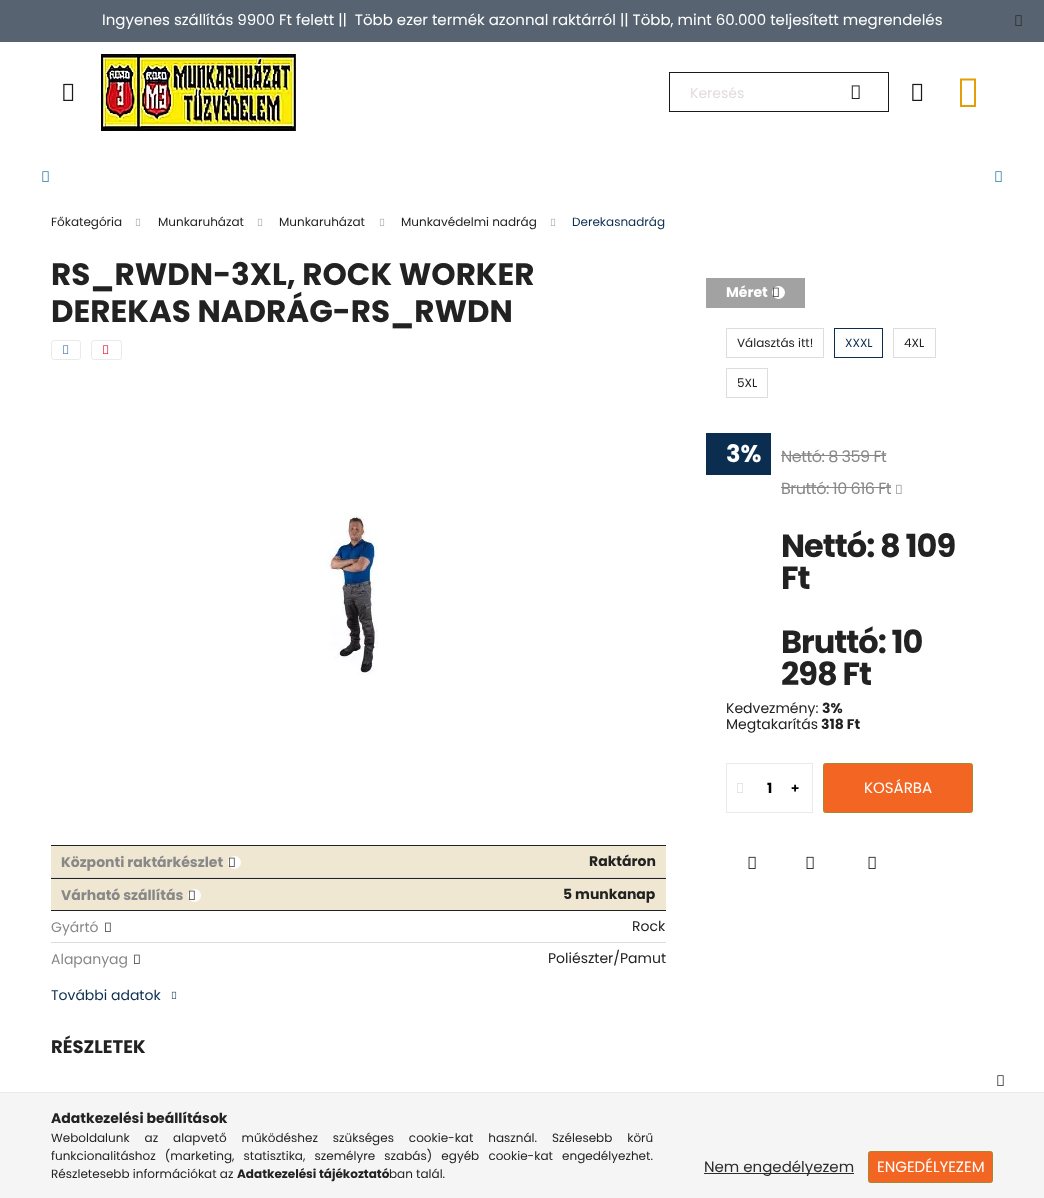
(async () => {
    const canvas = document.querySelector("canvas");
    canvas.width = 1044;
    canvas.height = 1198;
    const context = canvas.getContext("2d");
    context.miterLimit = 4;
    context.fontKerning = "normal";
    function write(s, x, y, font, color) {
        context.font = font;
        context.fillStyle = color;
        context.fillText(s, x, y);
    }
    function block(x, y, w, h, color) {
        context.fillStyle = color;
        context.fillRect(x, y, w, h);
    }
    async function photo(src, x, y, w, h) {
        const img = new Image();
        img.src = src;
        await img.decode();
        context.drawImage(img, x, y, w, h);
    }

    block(0, 0, 1044, 1198, "rgb(255, 255, 255)");
    block(0, 0, 1044, 42, "rgb(87, 99, 113)");
    write("Ingyenes szállítás 9900 Ft felett ||  Több ezer termék azonnal raktárról || Több, mint 60.000 teljesített megrendelés", 102, 25, "15px Poppins", "rgb(255, 255, 255)");
    await photo("media/1.png", 1015, 15, 7, 11);
    await photo("media/2.png", 63, 83, 11, 18);
    await photo("media/3.png", 101, 54, 195, 77);
    context.strokeStyle = "rgb(26, 26, 26)";
    context.strokeRect(669.5, 72.5, 219, 39);
    write("Keresés", 690, 98, "14px Poppins", "rgb(227, 220, 220)");
    await photo("media/4.png", 851, 85, 9, 14);
    await photo("media/2.png", 912, 83, 11, 18);
    context.fillStyle = "rgb(226, 159, 7)";
    context.beginPath();
    context.moveTo(960, 107);
    context.lineTo(960, 78.5);
    context.lineTo(976, 78.5);
    context.lineTo(976, 107);
    context.closePath();
    context.moveTo(962, 105);
    context.lineTo(974, 105);
    context.lineTo(974, 80.5);
    context.lineTo(962, 80.5);
    context.closePath();
    context.fill();
    await photo("media/5.png", 42, 171, 7, 11);
    await photo("media/5.png", 995, 171, 7, 11);
    write("Főkategória", 51, 226, "12px Poppins", "rgb(34, 34, 34)");
    await photo("media/6.png", 135, 218, 6, 8);
    write("Munkaruházat", 158, 226, "12px Poppins", "rgb(34, 34, 34)");
    await photo("media/6.png", 257, 218, 6, 8);
    write("Munkaruházat", 279, 226, "12px Poppins", "rgb(34, 34, 34)");
    await photo("media/6.png", 379, 218, 6, 8);
    write("Munkavédelmi nadrág", 401, 226, "12px Poppins", "rgb(34, 34, 34)");
    await photo("media/6.png", 550, 218, 6, 8);
    write("Derekasnadrág", 572, 226, "12px Poppins", "rgb(11, 45, 79)");
    write("RS_RWDN-3XL, ROCK WORKER", 51, 285, "bold 31px Poppins", "rgb(34, 34, 34)");
    write("DEREKAS NADRÁG-RS_RWDN", 51, 322, "bold 31px Poppins", "rgb(34, 34, 34)");
    context.beginPath();
    context.roundRect(51.5, 340.5, 29, 19, 2.5);
    context.strokeStyle = "rgb(234, 234, 234)";
    context.stroke();
    await photo("media/7.png", 63, 345, 6, 9);
    context.beginPath();
    context.roundRect(91.5, 340.5, 30, 19, 2.5);
    context.stroke();
    await photo("media/8.png", 103, 345, 6, 9);
    await photo("media/9.png", 326, 515, 52, 160);
    block(51, 846, 615, 31, "rgb(239, 231, 210)");
    block(51, 845, 615, 1, "rgb(34, 34, 34)");
    block(51, 877, 615, 1, "rgb(221, 221, 221)");
    write("Központi raktárkészlet", 61, 867, "bold 14px Poppins", "rgb(136, 136, 136)");
    context.fillStyle = "rgb(255, 255, 255)";
    context.beginPath();
    context.arc(234.5, 862.5, 6.5, 0, Math.PI * 2);
    context.fill();
    await photo("media/10.png", 229, 857, 6, 10);
    write("Raktáron", 589, 866, "bold 14px Poppins", "rgb(34, 34, 34)");
    block(51, 879, 615, 31, "rgb(239, 231, 210)");
    block(51, 878, 615, 1, "rgb(34, 34, 34)");
    block(51, 910, 615, 1, "rgb(34, 34, 34)");
    write("Várható szállítás", 61, 900, "bold 14px Poppins", "rgb(136, 136, 136)");
    context.fillStyle = "rgb(255, 255, 255)";
    context.beginPath();
    context.arc(194.5, 895.5, 6.5, 0, Math.PI * 2);
    context.fill();
    await photo("media/10.png", 189, 890, 6, 10);
    write("5 munkanap", 563, 899, "bold 14px Poppins", "rgb(34, 34, 34)");
    block(51, 942, 615, 1, "rgb(221, 221, 221)");
    write("Gyártó", 51, 932, "14px Poppins", "rgb(136, 136, 136)");
    await photo("media/11.png", 105, 922, 6, 10);
    write("Rock", 632, 931, "14px Poppins", "rgb(34, 34, 34)");
    write("Alapanyag", 51, 964, "14px Poppins", "rgb(136, 136, 136)");
    await photo("media/11.png", 134, 954, 6, 10);
    write("Poliészter/Pamut", 548, 963, "14px Poppins", "rgb(34, 34, 34)");
    write("További adatok", 51, 1000, "14px Poppins", "rgb(11, 45, 79)");
    await photo("media/12.png", 171, 991, 6, 8);
    block(706, 278, 99, 30, "rgb(162, 162, 162)");
    write("Méret", 726, 297, "bold 14px Poppins", "rgb(255, 255, 255)");
    context.beginPath();
    context.arc(778.5, 292.5, 6.5, 0, Math.PI * 2);
    context.fill();
    await photo("media/13.png", 773, 287, 6, 10);
    context.strokeStyle = "rgb(221, 221, 221)";
    context.strokeRect(726.5, 328.5, 97, 29);
    write("Választás itt!", 737, 347, "12px Poppins", "rgb(34, 34, 34)");
    context.strokeStyle = "rgb(11, 45, 79)";
    context.strokeRect(834.5, 328.5, 48, 29);
    write("XXXL", 845, 347, "12px Poppins", "rgb(11, 45, 79)");
    context.strokeStyle = "rgb(221, 221, 221)";
    context.strokeRect(893.5, 328.5, 42, 29);
    write("4XL", 904, 347, "12px Poppins", "rgb(34, 34, 34)");
    context.strokeRect(726.5, 368.5, 41, 29);
    write("5XL", 737, 387, "12px Poppins", "rgb(34, 34, 34)");
    block(706, 433, 65, 42, "rgb(11, 45, 79)");
    write("3%", 726, 462, "bold 24px Poppins", "rgb(255, 255, 255)");
    context.letterSpacing = "-0.5px";
    write("Nettó: 8 359 Ft", 781, 462, "16px Poppins", "rgb(136, 136, 136)");
    block(781, 455, 105, 1, "rgb(136, 136, 136)");
    write("Bruttó: 10 616 Ft", 781, 494, "16px Poppins", "rgb(136, 136, 136)");
    block(781, 487, 110, 1, "rgb(136, 136, 136)");
    await photo("media/14.png", 896, 484, 6, 10);
    context.letterSpacing = "-1px";
    write("Nettó: 8 109", 781, 557, "bold 32px Poppins", "rgb(34, 34, 34)");
    write("Ft", 781, 589, "bold 32px Poppins", "rgb(34, 34, 34)");
    write("Bruttó: 10", 781, 653, "bold 32px Poppins", "rgb(34, 34, 34)");
    write("298 Ft", 781, 685, "bold 32px Poppins", "rgb(34, 34, 34)");
    context.letterSpacing = "0px";
    write("Kedvezmény:", 726, 713, "14px Poppins", "rgb(34, 34, 34)");
    write("3%", 822, 713, "bold 14px Poppins", "rgb(34, 34, 34)");
    write("Megtakarítás", 726, 729, "14px Poppins", "rgb(34, 34, 34)");
    write("318 Ft", 821, 729, "bold 14px Poppins", "rgb(34, 34, 34)");
    context.strokeStyle = "rgb(234, 234, 234)";
    context.strokeRect(726.5, 763.5, 86, 49);
    await photo("media/15.png", 737, 783, 6, 10);
    write("1", 767, 793, "bold 14px Poppins", "rgb(0, 0, 0)");
    write("+", 791, 793, "900 14px Noto Sans", "rgb(0, 0, 0)");
    context.fillStyle = "rgb(242, 101, 34)";
    context.beginPath();
    context.roundRect(823.5, 763.5, 149, 49, 2);
    context.fill();
    context.strokeStyle = "rgb(168, 135, 52)";
    context.stroke();
    write("KOSÁRBA", 864, 793, "15px Poppins", "rgb(255, 255, 255)");
    await photo("media/16.png", 748, 856, 8, 13);
    await photo("media/16.png", 806, 856, 8, 13);
    await photo("media/16.png", 868, 856, 8, 13);
    write("RÉSZLETEK", 51, 1053, "bold 18px Poppins", "rgb(34, 34, 34)");
    await photo("media/17.png", 997, 1075, 7, 11);
    block(0, 1093, 1044, 105, "rgb(245, 245, 245)");
    block(0, 1092, 1044, 1, "rgb(234, 234, 234)");
    write("Adatkezelési beállítások", 51, 1123, "bold 14px Poppins", "rgb(34, 34, 34)");
    context.wordSpacing = "11.75px";
    write("Weboldalunk az alapvető működéshez szükséges cookie-kat használ. Szélesebb körű", 51, 1142, "12px Poppins", "rgb(34, 34, 34)");
    context.wordSpacing = "6px";
    write("funkcionalitáshoz (marketing, statisztika, személyre szabás) egyéb cookie-kat engedélyezhet.", 51, 1160, "12px Poppins", "rgb(34, 34, 34)");
    context.wordSpacing = "0px";
    write("Részletesebb információkat az", 51, 1178, "12px Poppins", "rgb(34, 34, 34)");
    write("Adatkezelési tájékoztató", 237, 1178, "bold 12px Poppins", "rgb(34, 34, 34)");
    write("ban talál.", 389, 1178, "12px Poppins", "rgb(34, 34, 34)");
    block(704, 1173, 150, 1, "rgb(44, 44, 44)");
    write("Nem engedélyezem", 704, 1172, "15px Poppins", "rgb(44, 44, 44)");
    context.fillStyle = "rgb(242, 101, 34)";
    context.beginPath();
    context.roundRect(868.5, 1151.5, 124, 31, 2);
    context.fill();
    context.stroke();
    write("ENGEDÉLYEZEM", 877, 1172, "15px Poppins", "rgb(255, 255, 255)");
})();
